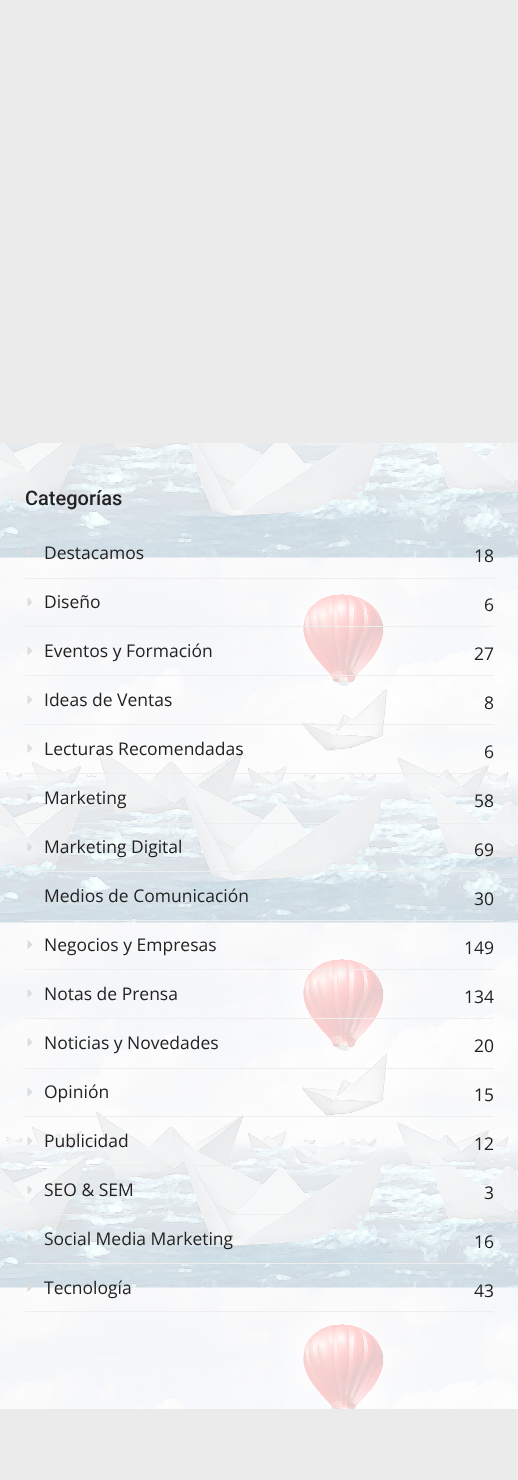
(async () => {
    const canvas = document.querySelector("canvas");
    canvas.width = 518;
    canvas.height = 1480;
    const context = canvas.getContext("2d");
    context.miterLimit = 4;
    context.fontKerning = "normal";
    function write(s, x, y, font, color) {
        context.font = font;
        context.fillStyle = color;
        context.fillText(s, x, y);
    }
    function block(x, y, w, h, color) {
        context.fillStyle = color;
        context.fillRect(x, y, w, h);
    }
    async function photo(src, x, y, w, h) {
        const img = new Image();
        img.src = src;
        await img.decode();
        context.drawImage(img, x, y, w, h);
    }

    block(0, 0, 518, 1480, "rgb(255, 255, 255)");
    await photo("media/1.png", 0, 443, 518, 966);
    block(0, 0, 518, 443, "rgb(235, 235, 235)");
    write("Categorías", 25, 505, "500 20px Roboto", "rgb(34, 34, 34)");
    await photo("media/2.png", 27, 548, 5, 8);
    block(25, 578, 469, 1, "rgb(238, 238, 238)");
    write("Destacamos", 44, 559, "17.5px Open Sans", "rgb(34, 34, 34)");
    write("18", 474, 562, "17.5px Open Sans", "rgb(34, 34, 34)");
    await photo("media/3.png", 27, 598, 6, 9);
    block(25, 626, 469, 1, "rgb(238, 238, 238)");
    write("Diseño", 44, 608, "17.5px Open Sans", "rgb(34, 34, 34)");
    write("6", 484, 611, "17.5px Open Sans", "rgb(34, 34, 34)");
    await photo("media/4.png", 27, 646, 5, 9);
    block(25, 675, 469, 1, "rgb(238, 238, 238)");
    write("Eventos y Formación", 44, 657, "17.5px Open Sans", "rgb(34, 34, 34)");
    write("27", 474, 660, "17.5px Open Sans", "rgb(34, 34, 34)");
    await photo("media/5.png", 27, 695, 6, 9);
    block(25, 724, 469, 1, "rgb(238, 238, 238)");
    write("Ideas de Ventas", 44, 706, "17.5px Open Sans", "rgb(34, 34, 34)");
    write("8", 484, 709, "17.5px Open Sans", "rgb(34, 34, 34)");
    await photo("media/6.png", 27, 744, 6, 9);
    block(25, 773, 469, 1, "rgb(238, 238, 238)");
    write("Lecturas Recomendadas", 44, 755, "17.5px Open Sans", "rgb(34, 34, 34)");
    write("6", 484, 758, "17.5px Open Sans", "rgb(34, 34, 34)");
    await photo("media/7.png", 27, 793, 6, 9);
    block(25, 823, 469, 1, "rgb(238, 238, 238)");
    write("Marketing", 44, 804, "17.5px Open Sans", "rgb(34, 34, 34)");
    write("58", 474, 807, "17.5px Open Sans", "rgb(34, 34, 34)");
    await photo("media/8.png", 27, 843, 5, 8);
    block(25, 871, 469, 1, "rgb(238, 238, 238)");
    write("Marketing Digital", 44, 853, "17.5px Open Sans", "rgb(34, 34, 34)");
    write("69", 474, 856, "17.5px Open Sans", "rgb(34, 34, 34)");
    await photo("media/9.png", 27, 892, 5, 8);
    block(25, 920, 469, 1, "rgb(238, 238, 238)");
    write("Medios de Comunicación", 44, 902, "17.5px Open Sans", "rgb(34, 34, 34)");
    write("30", 474, 905, "17.5px Open Sans", "rgb(34, 34, 34)");
    await photo("media/10.png", 27, 940, 6, 9);
    block(25, 969, 469, 1, "rgb(238, 238, 238)");
    write("Negocios y Empresas", 44, 951, "17.5px Open Sans", "rgb(34, 34, 34)");
    write("149", 464, 954, "17.5px Open Sans", "rgb(34, 34, 34)");
    await photo("media/11.png", 27, 989, 6, 9);
    block(25, 1018, 469, 1, "rgb(238, 238, 238)");
    write("Notas de Prensa", 44, 1000, "17.5px Open Sans", "rgb(34, 34, 34)");
    write("134", 464, 1003, "17.5px Open Sans", "rgb(34, 34, 34)");
    await photo("media/12.png", 27, 1038, 6, 9);
    block(25, 1068, 469, 1, "rgb(238, 238, 238)");
    write("Noticias y Novedades", 44, 1049, "17.5px Open Sans", "rgb(34, 34, 34)");
    write("20", 474, 1052, "17.5px Open Sans", "rgb(34, 34, 34)");
    await photo("media/13.png", 27, 1088, 6, 9);
    block(25, 1116, 469, 1, "rgb(238, 238, 238)");
    write("Opinión", 44, 1098, "17.5px Open Sans", "rgb(34, 34, 34)");
    write("15", 474, 1101, "17.5px Open Sans", "rgb(34, 34, 34)");
    await photo("media/14.png", 27, 1136, 6, 9);
    block(25, 1165, 469, 1, "rgb(238, 238, 238)");
    write("Publicidad", 44, 1147, "17.5px Open Sans", "rgb(34, 34, 34)");
    write("12", 474, 1150, "17.5px Open Sans", "rgb(34, 34, 34)");
    await photo("media/15.png", 27, 1185, 6, 9);
    block(25, 1214, 469, 1, "rgb(238, 238, 238)");
    write("SEO & SEM", 44, 1196, "17.5px Open Sans", "rgb(34, 34, 34)");
    write("3", 484, 1199, "17.5px Open Sans", "rgb(34, 34, 34)");
    await photo("media/16.png", 27, 1234, 6, 9);
    block(25, 1263, 469, 1, "rgb(238, 238, 238)");
    write("Social Media Marketing", 44, 1245, "17.5px Open Sans", "rgb(34, 34, 34)");
    write("16", 474, 1248, "17.5px Open Sans", "rgb(34, 34, 34)");
    await photo("media/17.png", 27, 1283, 5, 9);
    block(25, 1311, 469, 1, "rgb(238, 238, 238)");
    write("Tecnología", 44, 1294, "17.5px Open Sans", "rgb(34, 34, 34)");
    write("43", 474, 1297, "17.5px Open Sans", "rgb(34, 34, 34)");
    block(0, 1409, 518, 71, "rgb(235, 235, 235)");
})();
